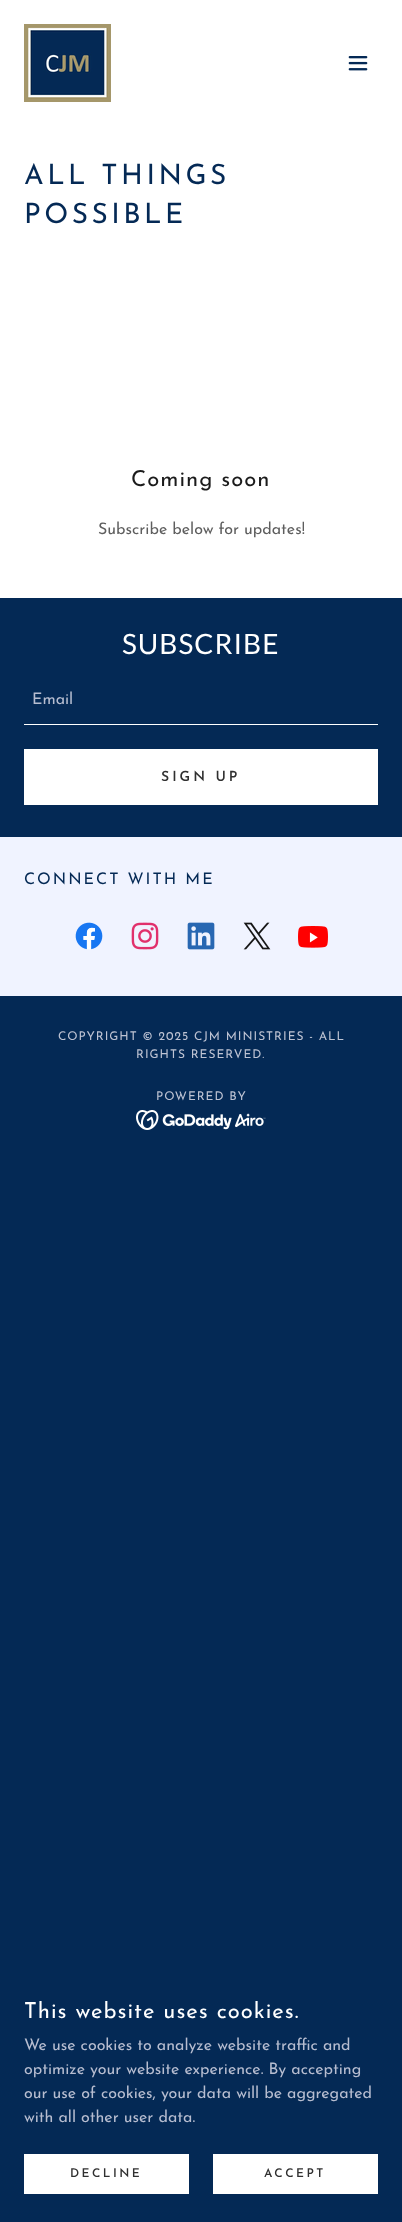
(async () => {
    const canvas = document.querySelector("canvas");
    canvas.width = 402;
    canvas.height = 2222;
    const context = canvas.getContext("2d");
    context.miterLimit = 4;
    context.fontKerning = "normal";
    function write(s, x, y, font, color) {
        context.font = font;
        context.fillStyle = color;
        context.fillText(s, x, y);
    }
    function block(x, y, w, h, color) {
        context.fillStyle = color;
        context.fillRect(x, y, w, h);
    }
    async function photo(src, x, y, w, h) {
        const img = new Image();
        img.src = src;
        await img.decode();
        context.drawImage(img, x, y, w, h);
    }

    block(0, 0, 402, 2222, "rgb(4, 41, 85)");
    block(0, 0, 402, 598, "rgb(255, 255, 255)");
    await photo("media/1.png", 24, 24, 87, 78);
    await photo("media/2.png", 348, 56, 20, 15);
    context.letterSpacing = "3.5px";
    write("ALL THINGS", 24, 184, "28px Josefin Sans", "rgb(4, 41, 85)");
    write("POSSIBLE", 24, 223, "28px Josefin Sans", "rgb(4, 41, 85)");
    context.letterSpacing = "1px";
    write("Coming soon", 131, 486, "22px Josefin Sans", "rgb(27, 27, 27)");
    context.letterSpacing = "0px";
    write("Subscribe below for updates!", 98, 534, "16px Josefin Sans", "rgb(94, 94, 94)");
    context.letterSpacing = "1px";
    write("SUBSCRIBE", 122, 654, "28px Lato", "rgb(255, 255, 255)");
    context.letterSpacing = "0px";
    write("Email", 32, 704, "16px Josefin Sans", "rgb(183, 189, 208)");
    block(24, 724, 354, 1, "rgb(255, 255, 255)");
    block(24, 749, 354, 56, "rgb(255, 255, 255)");
    context.letterSpacing = "3px";
    write("SIGN UP", 161, 781, "600 14px Josefin Sans", "rgb(48, 48, 48)");
    block(0, 837, 402, 159, "rgb(240, 243, 255)");
    context.letterSpacing = "2px";
    write("CONNECT WITH ME", 24, 884, "16px Josefin Sans", "rgb(4, 41, 85)");
    await photo("media/3.png", 75, 922, 28, 28);
    await photo("media/4.png", 131, 922, 28, 28);
    await photo("media/5.png", 187, 922, 28, 28);
    await photo("media/6.png", 243, 922, 28, 28);
    await photo("media/7.png", 298, 926, 30, 22);
    context.letterSpacing = "1px";
    write("COPYRIGHT © 2025 CJM MINISTRIES - ALL", 58, 1040, "12px Josefin Sans", "rgb(190, 195, 211)");
    write("RIGHTS RESERVED.", 136, 1058, "12px Josefin Sans", "rgb(190, 195, 211)");
    write("POWERED BY", 156, 1100, "12px Josefin Sans", "rgb(190, 195, 211)");
    await photo("media/8.png", 136, 1110, 130, 20);
    write("This website uses cookies.", 24, 2018, "22px Josefin Sans", "rgb(255, 255, 255)");
    context.letterSpacing = "0px";
    write("We use cookies to analyze website traffic and", 24, 2050, "16px Josefin Sans", "rgb(183, 189, 208)");
    write("optimize your website experience. By accepting", 24, 2074, "16px Josefin Sans", "rgb(183, 189, 208)");
    write("our use of cookies, your data will be aggregated", 24, 2098, "16px Josefin Sans", "rgb(183, 189, 208)");
    write("with all other user data.", 24, 2122, "16px Josefin Sans", "rgb(183, 189, 208)");
    block(24, 2154, 165, 40, "rgb(255, 255, 255)");
    context.letterSpacing = "2.5px";
    write("DECLINE", 70, 2177, "600 12px Josefin Sans", "rgb(48, 48, 48)");
    block(213, 2154, 165, 40, "rgb(255, 255, 255)");
    write("ACCEPT", 264, 2177, "600 12px Josefin Sans", "rgb(48, 48, 48)");
})();
